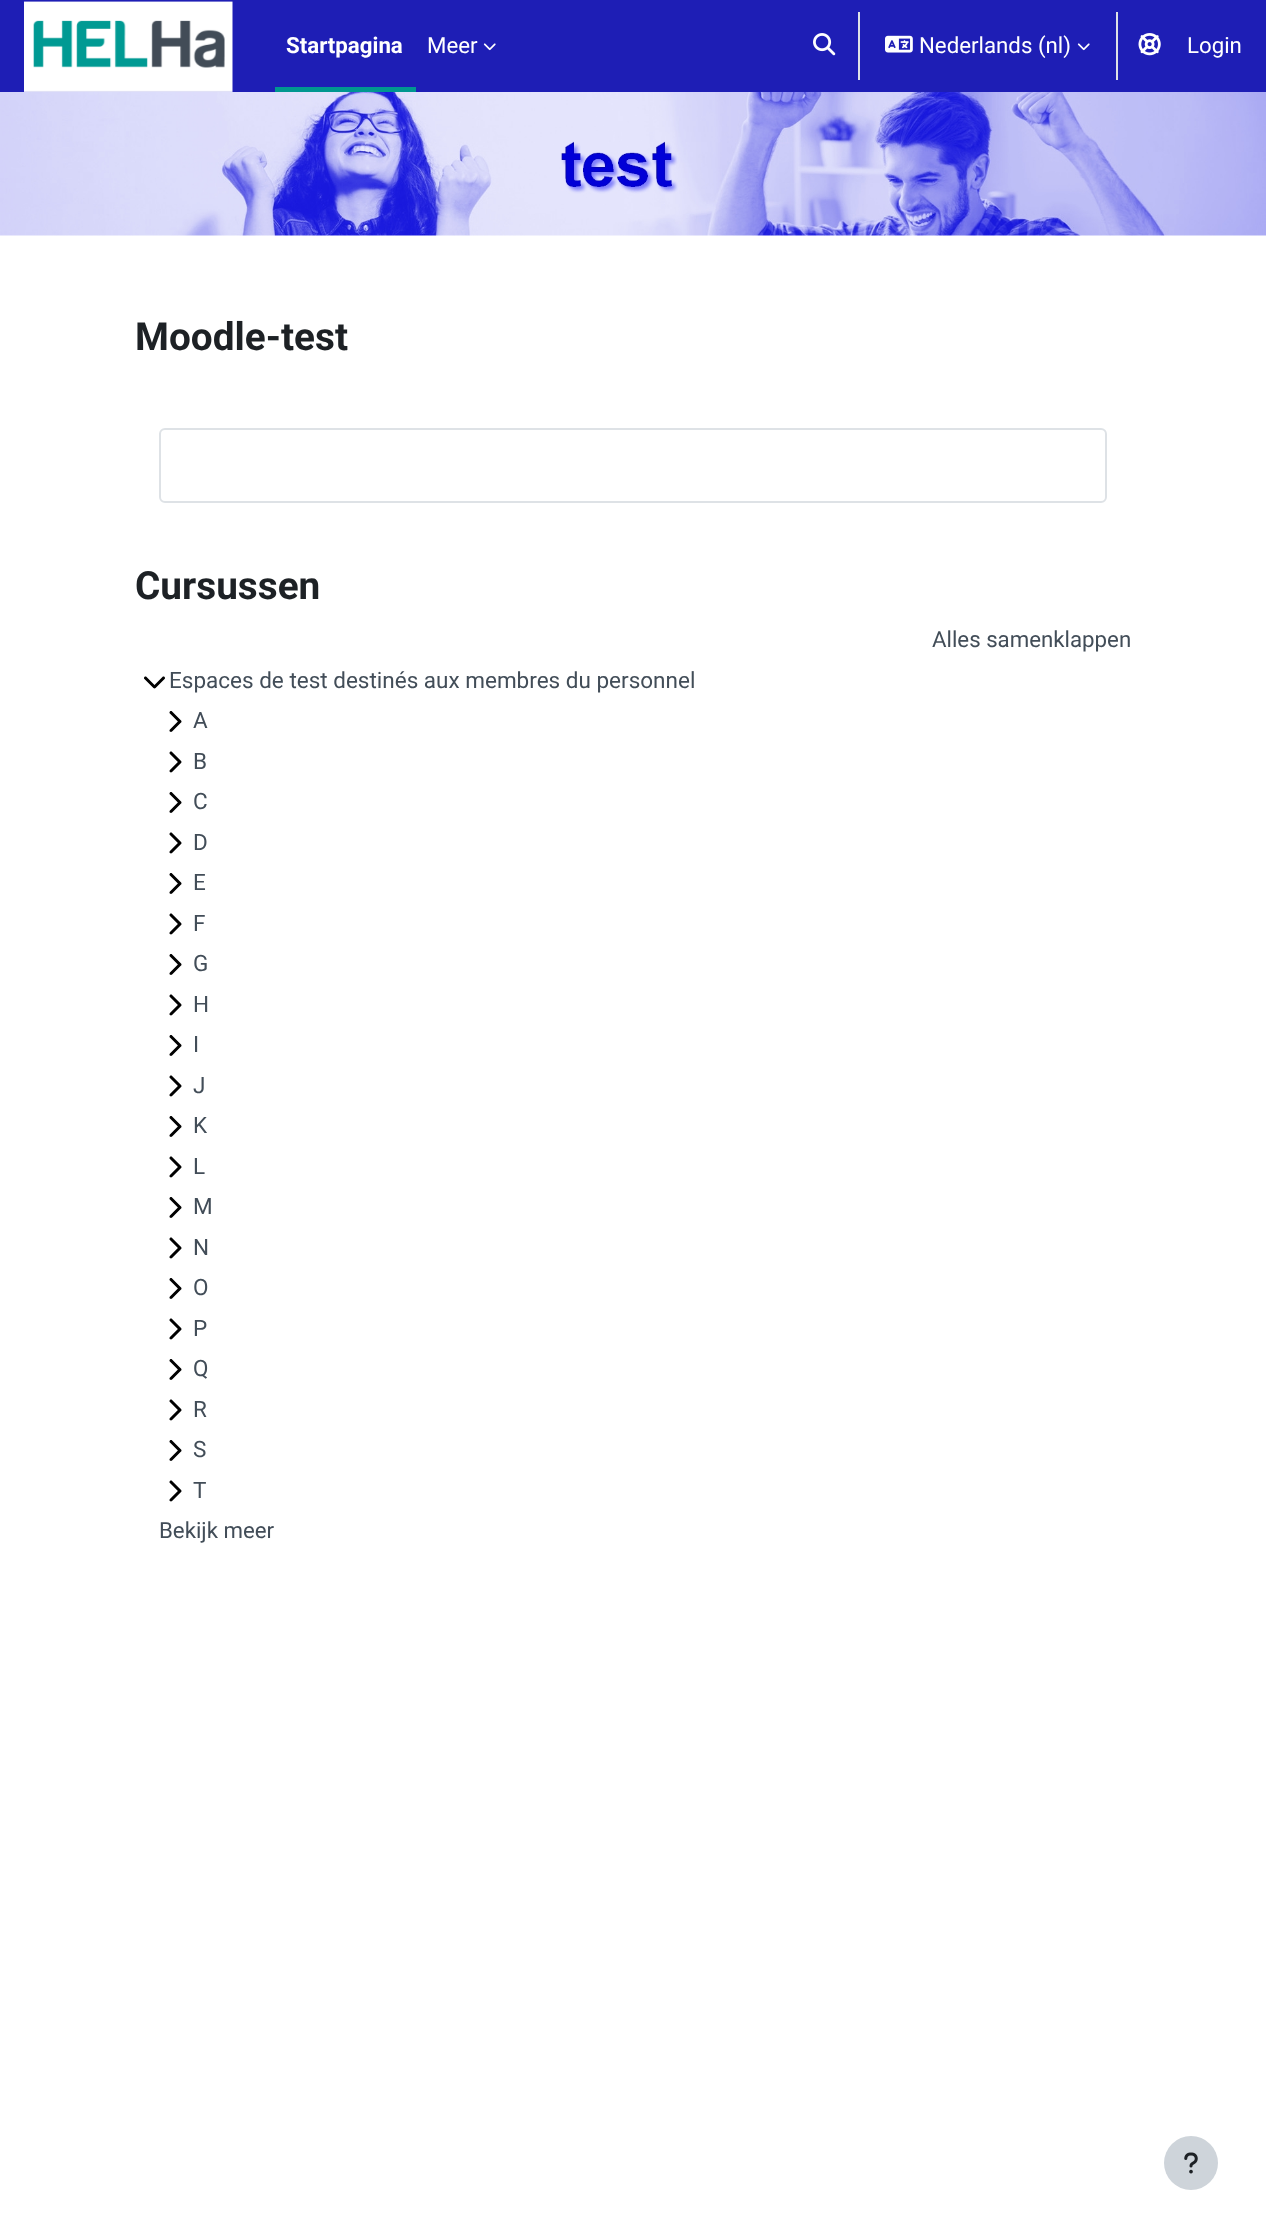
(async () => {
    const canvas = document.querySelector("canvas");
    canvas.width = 1266;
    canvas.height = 2238;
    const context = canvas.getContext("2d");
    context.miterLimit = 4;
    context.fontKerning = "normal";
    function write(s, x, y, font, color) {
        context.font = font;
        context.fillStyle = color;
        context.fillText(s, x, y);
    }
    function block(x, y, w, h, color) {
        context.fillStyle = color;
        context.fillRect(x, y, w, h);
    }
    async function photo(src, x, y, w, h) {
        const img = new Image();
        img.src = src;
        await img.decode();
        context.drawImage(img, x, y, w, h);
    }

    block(0, 0, 1266, 2238, "rgb(255, 255, 255)");
    block(0, 0, 1266, 92, "rgb(30, 30, 181)");
    await photo("media/1.png", 24, 1, 209, 91);
    block(275, 87, 141, 5, "rgb(0, 151, 144)");
    write("Startpagina", 286, 53, "bold 22.25px Roboto", "rgb(255, 255, 255)");
    write("Meer", 427, 53, "22.25px Roboto", "rgb(255, 255, 255)");
    await photo("media/2.png", 483, 43, 13, 8);
    await photo("media/3.png", 813, 33, 23, 23);
    block(858, 12, 2, 68, "rgb(222, 226, 230)");
    await photo("media/4.png", 885, 35, 28, 18);
    write("Nederlands (nl)", 919, 53, "22.25px Roboto", "rgb(255, 255, 255)");
    await photo("media/2.png", 1077, 43, 13, 8);
    block(1116, 12, 2, 68, "rgb(222, 226, 230)");
    await photo("media/5.png", 1138, 33, 23, 23);
    write("Login", 1187, 53, "22.25px Roboto", "rgb(255, 255, 255)");
    write("Moodle-test", 135, 350, "bold 38.75px Roboto", "rgb(29, 33, 37)");
    context.beginPath();
    context.roundRect(160, 429, 946, 73, 5);
    context.strokeStyle = "rgb(222, 226, 230)";
    context.lineWidth = 2;
    context.stroke();
    write("Cursussen", 135, 599, "bold 38.75px Roboto", "rgb(29, 33, 37)");
    write("Alles samenklappen", 932, 647, "22.25px Roboto", "rgb(66, 77, 88)");
    await photo("media/6.png", 144, 676, 21, 13);
    write("Espaces de test destinés aux membres du personnel", 169, 688, "22.5px Roboto", "rgb(66, 77, 88)");
    await photo("media/7.png", 169, 711, 13, 21);
    write("A", 193, 728, "22.5px Roboto", "rgb(66, 77, 88)");
    await photo("media/8.png", 169, 751, 13, 22);
    write("B", 193, 769, "22.5px Roboto", "rgb(66, 77, 88)");
    await photo("media/7.png", 169, 792, 13, 21);
    write("C", 193, 809, "22.5px Roboto", "rgb(66, 77, 88)");
    await photo("media/9.png", 169, 832, 13, 22);
    write("D", 193, 850, "22.5px Roboto", "rgb(66, 77, 88)");
    await photo("media/7.png", 169, 873, 13, 21);
    write("E", 193, 890, "22.5px Roboto", "rgb(66, 77, 88)");
    await photo("media/9.png", 169, 913, 13, 22);
    write("F", 193, 931, "22.5px Roboto", "rgb(66, 77, 88)");
    await photo("media/7.png", 169, 954, 13, 21);
    write("G", 193, 971, "22.5px Roboto", "rgb(66, 77, 88)");
    await photo("media/9.png", 169, 994, 13, 22);
    write("H", 193, 1012, "22.5px Roboto", "rgb(66, 77, 88)");
    await photo("media/7.png", 169, 1035, 13, 21);
    write("I", 193, 1052, "22.5px Roboto", "rgb(66, 77, 88)");
    await photo("media/9.png", 169, 1075, 13, 22);
    write("J", 193, 1093, "22.5px Roboto", "rgb(66, 77, 88)");
    await photo("media/7.png", 169, 1116, 13, 21);
    write("K", 193, 1133, "22.5px Roboto", "rgb(66, 77, 88)");
    await photo("media/9.png", 169, 1156, 13, 22);
    write("L", 193, 1174, "22.5px Roboto", "rgb(66, 77, 88)");
    await photo("media/7.png", 169, 1197, 13, 21);
    write("M", 193, 1214, "22.5px Roboto", "rgb(66, 77, 88)");
    await photo("media/9.png", 169, 1237, 13, 22);
    write("N", 193, 1255, "22.5px Roboto", "rgb(66, 77, 88)");
    await photo("media/7.png", 169, 1278, 13, 21);
    write("O", 193, 1295, "22.5px Roboto", "rgb(66, 77, 88)");
    await photo("media/9.png", 169, 1318, 13, 22);
    write("P", 193, 1336, "22.5px Roboto", "rgb(66, 77, 88)");
    await photo("media/7.png", 169, 1359, 13, 21);
    write("Q", 193, 1376, "22.5px Roboto", "rgb(66, 77, 88)");
    await photo("media/9.png", 169, 1399, 13, 22);
    write("R", 193, 1417, "22.5px Roboto", "rgb(66, 77, 88)");
    await photo("media/7.png", 169, 1440, 13, 21);
    write("S", 193, 1457, "22.5px Roboto", "rgb(66, 77, 88)");
    await photo("media/9.png", 169, 1480, 13, 22);
    write("T", 193, 1498, "22.5px Roboto", "rgb(66, 77, 88)");
    write("Bekijk meer", 159, 1538, "22.25px Roboto", "rgb(66, 77, 88)");
    context.fillStyle = "rgb(206, 212, 218)";
    context.beginPath();
    context.arc(1191, 2163, 27, 0, Math.PI * 2);
    context.fill();
    await photo("media/10.png", 1184, 2152, 14, 22);
    await photo("media/11.png", 0, 92, 1266, 144);
})();
